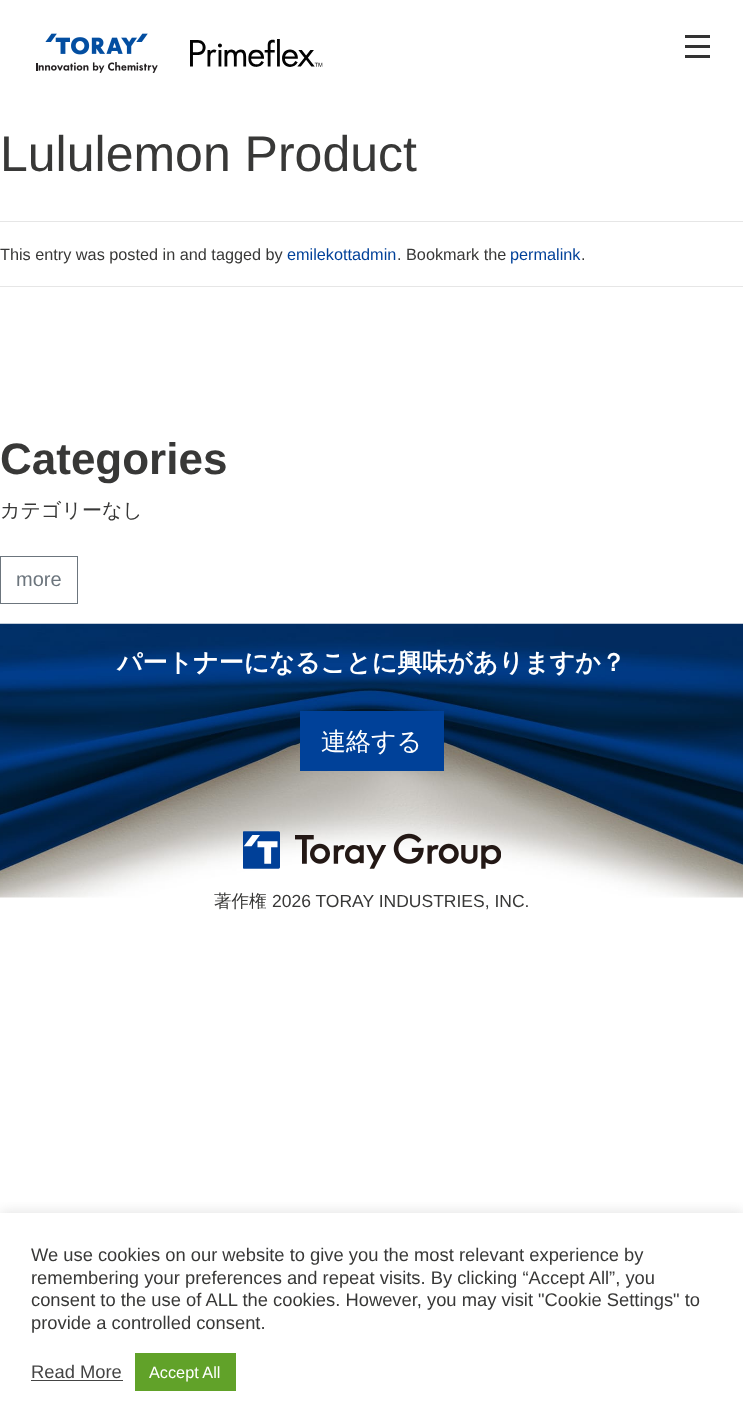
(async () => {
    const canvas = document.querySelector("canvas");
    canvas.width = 743;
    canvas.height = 1428;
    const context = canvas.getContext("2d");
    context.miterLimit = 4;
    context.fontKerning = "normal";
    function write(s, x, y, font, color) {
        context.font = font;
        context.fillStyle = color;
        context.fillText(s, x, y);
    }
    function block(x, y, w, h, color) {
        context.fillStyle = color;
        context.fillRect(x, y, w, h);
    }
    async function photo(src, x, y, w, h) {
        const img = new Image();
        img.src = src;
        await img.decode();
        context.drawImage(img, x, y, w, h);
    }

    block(0, 0, 743, 1428, "rgb(255, 255, 255)");
    await photo("media/1.png", 36, 33, 122, 40);
    await photo("media/2.png", 190, 39, 133, 28);
    block(685, 35, 25, 3, "rgb(51, 51, 51)");
    block(685, 45, 25, 3, "rgb(51, 51, 51)");
    block(685, 55, 25, 3, "rgb(51, 51, 51)");
    write("Lululemon Product", 0, 171, "50px Liberation Sans", "rgb(56, 56, 55)");
    block(0, 221, 743, 1, "rgb(230, 230, 230)");
    write("This entry was posted in and tagged by", 0, 260, "16.25px Liberation Sans", "rgb(56, 56, 55)");
    write("emilekottadmin", 287, 260, "16.25px Liberation Sans", "rgb(0, 65, 153)");
    write(". Bookmark the", 397, 260, "16.25px Liberation Sans", "rgb(56, 56, 55)");
    write("permalink", 510, 260, "16.25px Liberation Sans", "rgb(0, 65, 153)");
    write(".", 581, 260, "16.25px Liberation Sans", "rgb(56, 56, 55)");
    block(0, 286, 743, 1, "rgb(230, 230, 230)");
    write("Categories", 0, 474, "bold 44px Liberation Sans", "rgb(56, 56, 55)");
    write("カテゴリーなし", 0, 517, "500 20px WenQuanYi Zen Hei", "rgb(56, 56, 55)");
    context.strokeStyle = "rgb(108, 117, 125)";
    context.strokeRect(0.5, 556.5, 77, 47);
    write("more", 16, 586, "20px Liberation Sans", "rgb(108, 117, 125)");
    await photo("media/3.png", 0, 623, 743, 275);
    write("パートナーになることに興味がありますか？", 117, 671, "bold 25px WenQuanYi Zen Hei", "rgb(255, 255, 255)");
    block(300, 711, 144, 60, "rgb(0, 65, 153)");
    write("連絡する", 321, 750, "500 25px WenQuanYi Zen Hei", "rgb(255, 255, 255)");
    await photo("media/4.png", 243, 831, 258, 38);
    write("著作権", 214, 907, "500 17.5px WenQuanYi Zen Hei", "rgb(56, 56, 55)");
    write("2026 TORAY INDUSTRIES, INC.", 272, 907, "17.5px Liberation Sans", "rgb(56, 56, 55)");
    context.save();
    context.beginPath();
    context.rect(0, 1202, 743, 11);
    context.clip();
    context.fillStyle = "rgba(172, 171, 171, 0.3)";
    context.filter = "blur(6px)";
    context.beginPath();
    context.rect(0, 1211, 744, 217);
    context.fill();
    context.filter = "none";
    context.restore();
    write("We use cookies on our website to give you the most relevant experience by", 31, 1261, "18.35px Liberation Sans", "rgb(56, 56, 55)");
    write("remembering your preferences and repeat visits. By clicking “Accept All”, you", 31, 1284, "18.35px Liberation Sans", "rgb(56, 56, 55)");
    write("consent to the use of ALL the cookies. However, you may visit \"Cookie Settings\" to", 31, 1306, "18.35px Liberation Sans", "rgb(56, 56, 55)");
    write("provide a controlled consent.", 31, 1329, "18.35px Liberation Sans", "rgb(56, 56, 55)");
    write("Read More", 31, 1378, "18.35px Liberation Sans", "rgb(68, 68, 68)");
    block(31, 1380, 92, 1, "rgb(68, 68, 68)");
    block(135, 1353, 101, 38, "rgb(97, 162, 41)");
    write("Accept All", 149, 1378, "16.25px Liberation Sans", "rgb(255, 255, 255)");
})();
